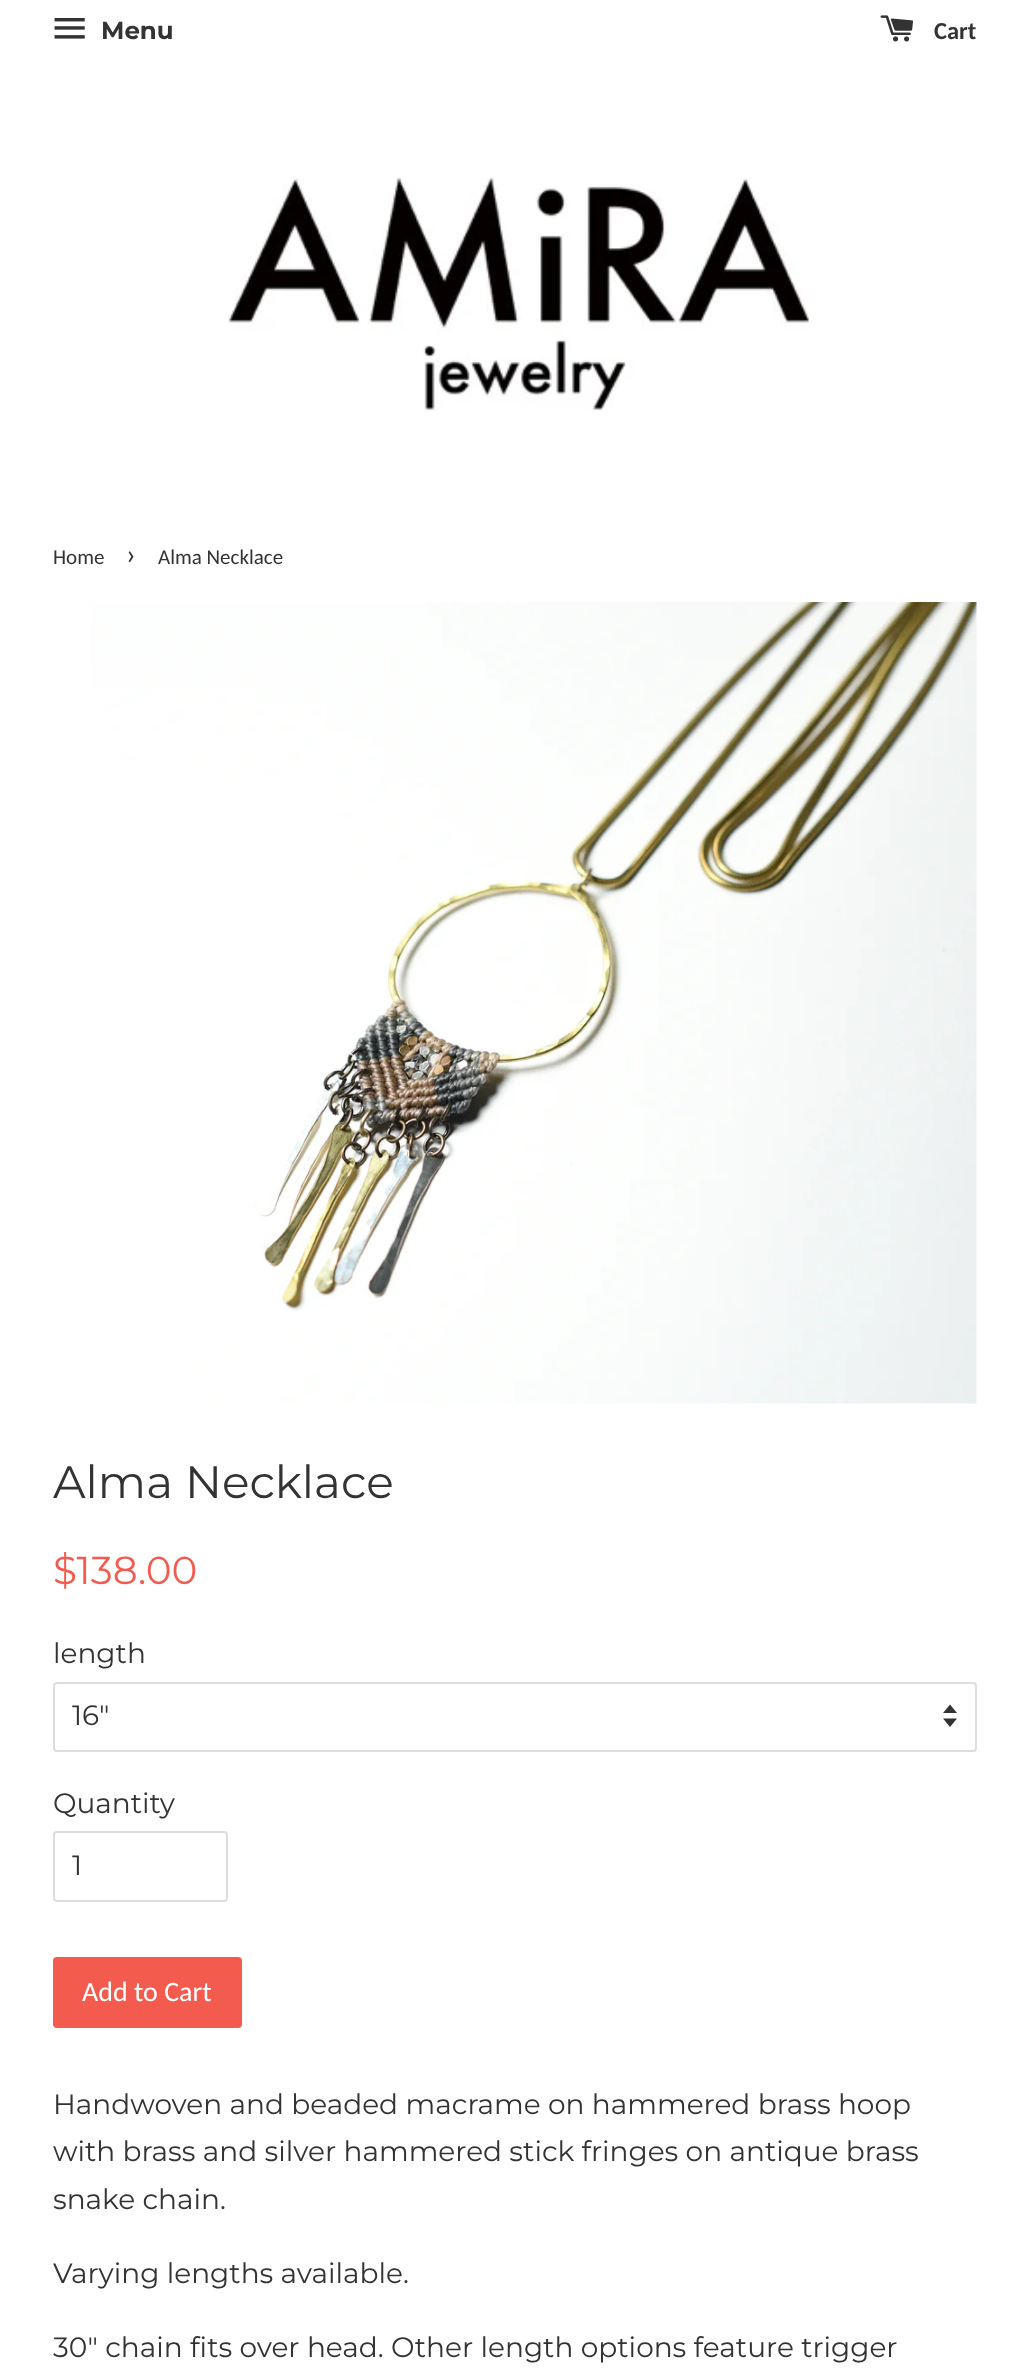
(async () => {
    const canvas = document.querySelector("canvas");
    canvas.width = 1028;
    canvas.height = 2370;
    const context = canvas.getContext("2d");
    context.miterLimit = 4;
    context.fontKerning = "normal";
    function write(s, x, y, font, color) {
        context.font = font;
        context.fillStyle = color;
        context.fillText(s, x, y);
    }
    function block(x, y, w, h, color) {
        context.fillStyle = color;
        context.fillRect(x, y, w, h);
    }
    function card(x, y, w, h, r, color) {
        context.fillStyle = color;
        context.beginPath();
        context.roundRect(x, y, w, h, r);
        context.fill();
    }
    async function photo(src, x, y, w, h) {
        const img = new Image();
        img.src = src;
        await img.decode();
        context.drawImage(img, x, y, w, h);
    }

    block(0, 0, 1028, 2370, "rgb(255, 255, 255)");
    await photo("media/1.png", 54, 18, 31, 21);
    write("Menu", 101, 39, "bold 24.5px Montserrat", "rgb(51, 51, 51)");
    await photo("media/2.png", 880, 15, 33, 27);
    write("Cart", 934, 39, "bold 24.5px Carlito", "rgb(51, 51, 51)");
    await photo("media/3.png", 228, 177, 582, 236);
    write("Home", 53, 564, "21px Carlito", "rgb(51, 51, 51)");
    write("›", 126, 564, "29px Carlito", "rgb(51, 51, 51)");
    write("Alma Necklace", 158, 564, "21px Carlito", "rgb(51, 51, 51)");
    await photo("media/4.png", 90, 602, 887, 802);
    write("Alma Necklace", 53, 1498, "45.5px Montserrat", "rgb(51, 51, 51)");
    write("$138.00", 53, 1584, "39px Montserrat", "rgb(244, 91, 79)");
    write("length", 53, 1663, "28px Montserrat", "rgb(51, 51, 51)");
    context.beginPath();
    context.moveTo(943, 1718.5);
    context.lineTo(950, 1727);
    context.lineTo(957, 1718.5);
    context.closePath();
    context.moveTo(950, 1704.5);
    context.lineTo(943, 1713);
    context.lineTo(957, 1713);
    context.closePath();
    context.fill();
    context.beginPath();
    context.roundRect(54, 1683, 922, 68, 3);
    context.strokeStyle = "rgb(221, 221, 221)";
    context.lineWidth = 2;
    context.stroke();
    write("16\"", 72, 1725, "28px Montserrat", "rgb(51, 51, 51)");
    write("Quantity", 53, 1813, "28px Montserrat", "rgb(51, 51, 51)");
    context.beginPath();
    context.roundRect(54, 1832, 173, 69, 3);
    context.stroke();
    write("1", 72, 1875, "28px Montserrat", "rgb(51, 51, 51)");
    card(53, 1957, 189, 71, 4, "rgb(244, 91, 79)");
    write("Add to Cart", 82, 2001, "28px Carlito", "rgb(255, 255, 255)");
    write("Handwoven and beaded macrame on hammered brass hoop", 53, 2114, "28px Montserrat", "rgb(51, 51, 51)");
    write("with brass and silver hammered stick fringes on antique brass", 53, 2161, "28px Montserrat", "rgb(51, 51, 51)");
    write("snake chain.", 53, 2209, "28px Montserrat", "rgb(51, 51, 51)");
    write("Varying lengths available.", 53, 2283, "28px Montserrat", "rgb(51, 51, 51)");
    write("30\" chain fits over head. Other length options feature trigger", 53, 2357, "28px Montserrat", "rgb(51, 51, 51)");
})();
